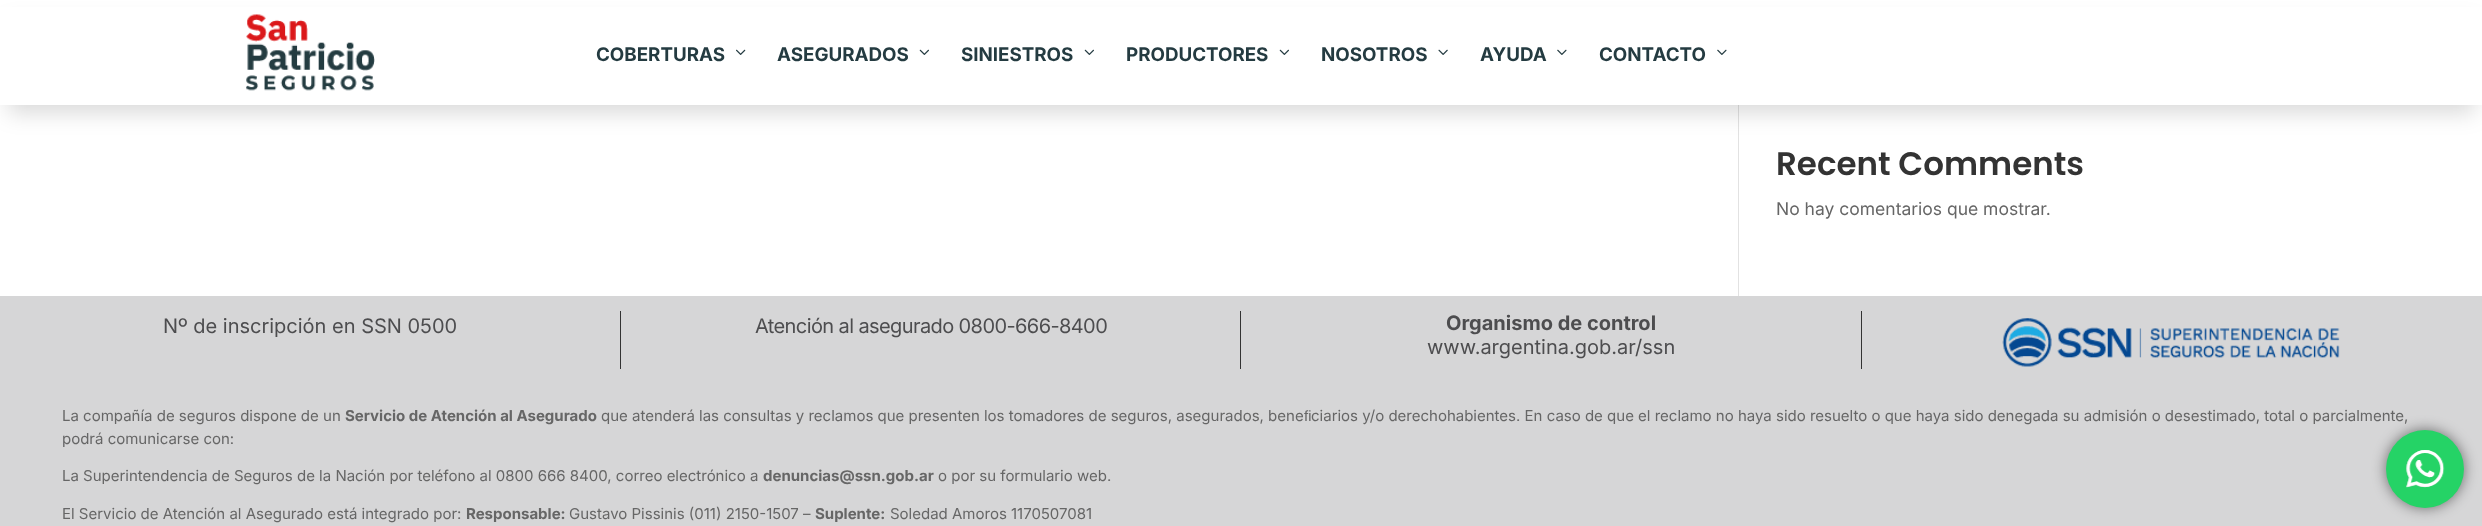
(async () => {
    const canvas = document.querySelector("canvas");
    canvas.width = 2482;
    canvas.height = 526;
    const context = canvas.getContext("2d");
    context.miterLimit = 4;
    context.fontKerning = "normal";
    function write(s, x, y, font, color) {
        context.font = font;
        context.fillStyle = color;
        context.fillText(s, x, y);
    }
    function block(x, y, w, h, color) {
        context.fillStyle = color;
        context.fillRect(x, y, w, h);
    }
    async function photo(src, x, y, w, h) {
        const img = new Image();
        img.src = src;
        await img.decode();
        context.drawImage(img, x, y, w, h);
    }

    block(0, 0, 2482, 526, "rgb(255, 255, 255)");
    block(1738, 105, 1, 191, "rgb(226, 226, 226)");
    context.fillStyle = "rgba(0, 0, 0, 0.15)";
    context.filter = "blur(11px)";
    context.beginPath();
    context.rect(8, 23, 2467, 90);
    context.fill();
    context.filter = "none";
    block(0, 7, 2482, 98, "rgb(255, 255, 255)");
    await photo("media/1.png", 246, 14, 129, 77);
    write("COBERTURAS", 596, 61, "bold 18.75px Inter", "rgb(36, 59, 65)");
    await photo("media/2.png", 736, 49, 10, 6);
    write("ASEGURADOS", 777, 61, "bold 18.75px Inter", "rgb(36, 59, 65)");
    await photo("media/3.png", 919, 49, 10, 6);
    write("SINIESTROS", 961, 61, "bold 18.75px Inter", "rgb(36, 59, 65)");
    await photo("media/3.png", 1084, 49, 10, 6);
    write("PRODUCTORES", 1126, 61, "bold 18.75px Inter", "rgb(36, 59, 65)");
    await photo("media/3.png", 1279, 49, 10, 6);
    write("NOSOTROS", 1321, 61, "bold 18.75px Inter", "rgb(36, 59, 65)");
    await photo("media/4.png", 1438, 49, 10, 6);
    write("AYUDA", 1480, 61, "bold 18.75px Inter", "rgb(36, 59, 65)");
    await photo("media/5.png", 1557, 49, 10, 6);
    write("CONTACTO", 1599, 61, "bold 18.75px Inter", "rgb(36, 59, 65)");
    await photo("media/5.png", 1717, 49, 10, 6);
    write("Recent Comments", 1776, 175, "600 32.5px Poppins", "rgb(51, 51, 51)");
    write("No hay comentarios que mostrar.", 1776, 215, "17.5px Inter", "rgb(102, 102, 102)");
    block(0, 296, 2482, 230, "rgb(214, 214, 215)");
    block(620, 311, 1, 58, "rgb(51, 51, 51)");
    write("Nº de inscripción en SSN 0500", 163, 333, "20px Inter", "rgb(77, 77, 79)");
    block(1240, 311, 1, 58, "rgb(51, 51, 51)");
    context.letterSpacing = "-0.6px";
    write("Atención al asegurado 0800-666-8400", 755, 333, "20px Inter", "rgb(77, 77, 79)");
    block(1861, 311, 1, 58, "rgb(51, 51, 51)");
    context.letterSpacing = "0px";
    write("Organismo de control", 1446, 330, "bold 20px Inter", "rgb(77, 77, 79)");
    write("www.argentina.gob.ar/ssn", 1427, 354, "20px Inter", "rgb(77, 77, 79)");
    await photo("media/6.png", 2002, 318, 338, 49);
    write("La compañía de seguros dispone de un", 62, 421, "15px Inter", "rgb(102, 102, 102)");
    write("Servicio de Atención al Asegurado", 345, 421, "bold 15px Inter", "rgb(102, 102, 102)");
    write("que atenderá las consultas y reclamos que presenten los tomadores de seguros, asegurados, bene", 601, 421, "15px Inter", "rgb(102, 102, 102)");
    write("ﬁ", 1304, 421, "15px Liberation Sans", "rgb(102, 102, 102)");
    write("ciarios y/o derechohabientes. En caso de que el reclamo no haya sido resuelto o que haya sido denegada su admisión o desestimado, total o parcialmente,", 1311, 421, "15px Inter", "rgb(102, 102, 102)");
    write("podrá comunicarse con:", 62, 444, "15px Inter", "rgb(102, 102, 102)");
    write("La Superintendencia de Seguros de la Nación por teléfono al 0800 666 8400, correo electrónico a", 62, 481, "15px Inter", "rgb(102, 102, 102)");
    write("denuncias@ssn.gob.ar", 763, 481, "bold 15px Inter", "rgb(102, 102, 102)");
    write("o por su formulario web.", 938, 481, "15px Inter", "rgb(102, 102, 102)");
    write("El Servicio de Atención al Asegurado está integrado por:", 62, 519, "15px Inter", "rgb(102, 102, 102)");
    write("Responsable:", 466, 519, "bold 15px Inter", "rgb(102, 102, 102)");
    write("Gustavo Pissinis (011) 2150-1507 –", 569, 519, "15px Inter", "rgb(102, 102, 102)");
    write("Suplente:", 815, 519, "bold 15px Inter", "rgb(102, 102, 102)");
    write("Soledad Amoros 1170507081", 890, 519, "15px Inter", "rgb(102, 102, 102)");
    context.fillStyle = "rgba(0, 0, 0, 0.5)";
    context.filter = "blur(7px)";
    context.beginPath();
    context.roundRect(2386, 430, 78, 78, 39);
    context.fill();
    context.filter = "none";
    context.fillStyle = "rgb(37, 211, 102)";
    context.beginPath();
    context.arc(2425, 469, 39, 0, Math.PI * 2);
    context.fill();
    await photo("media/7.png", 2406, 450, 39, 38);
})();
